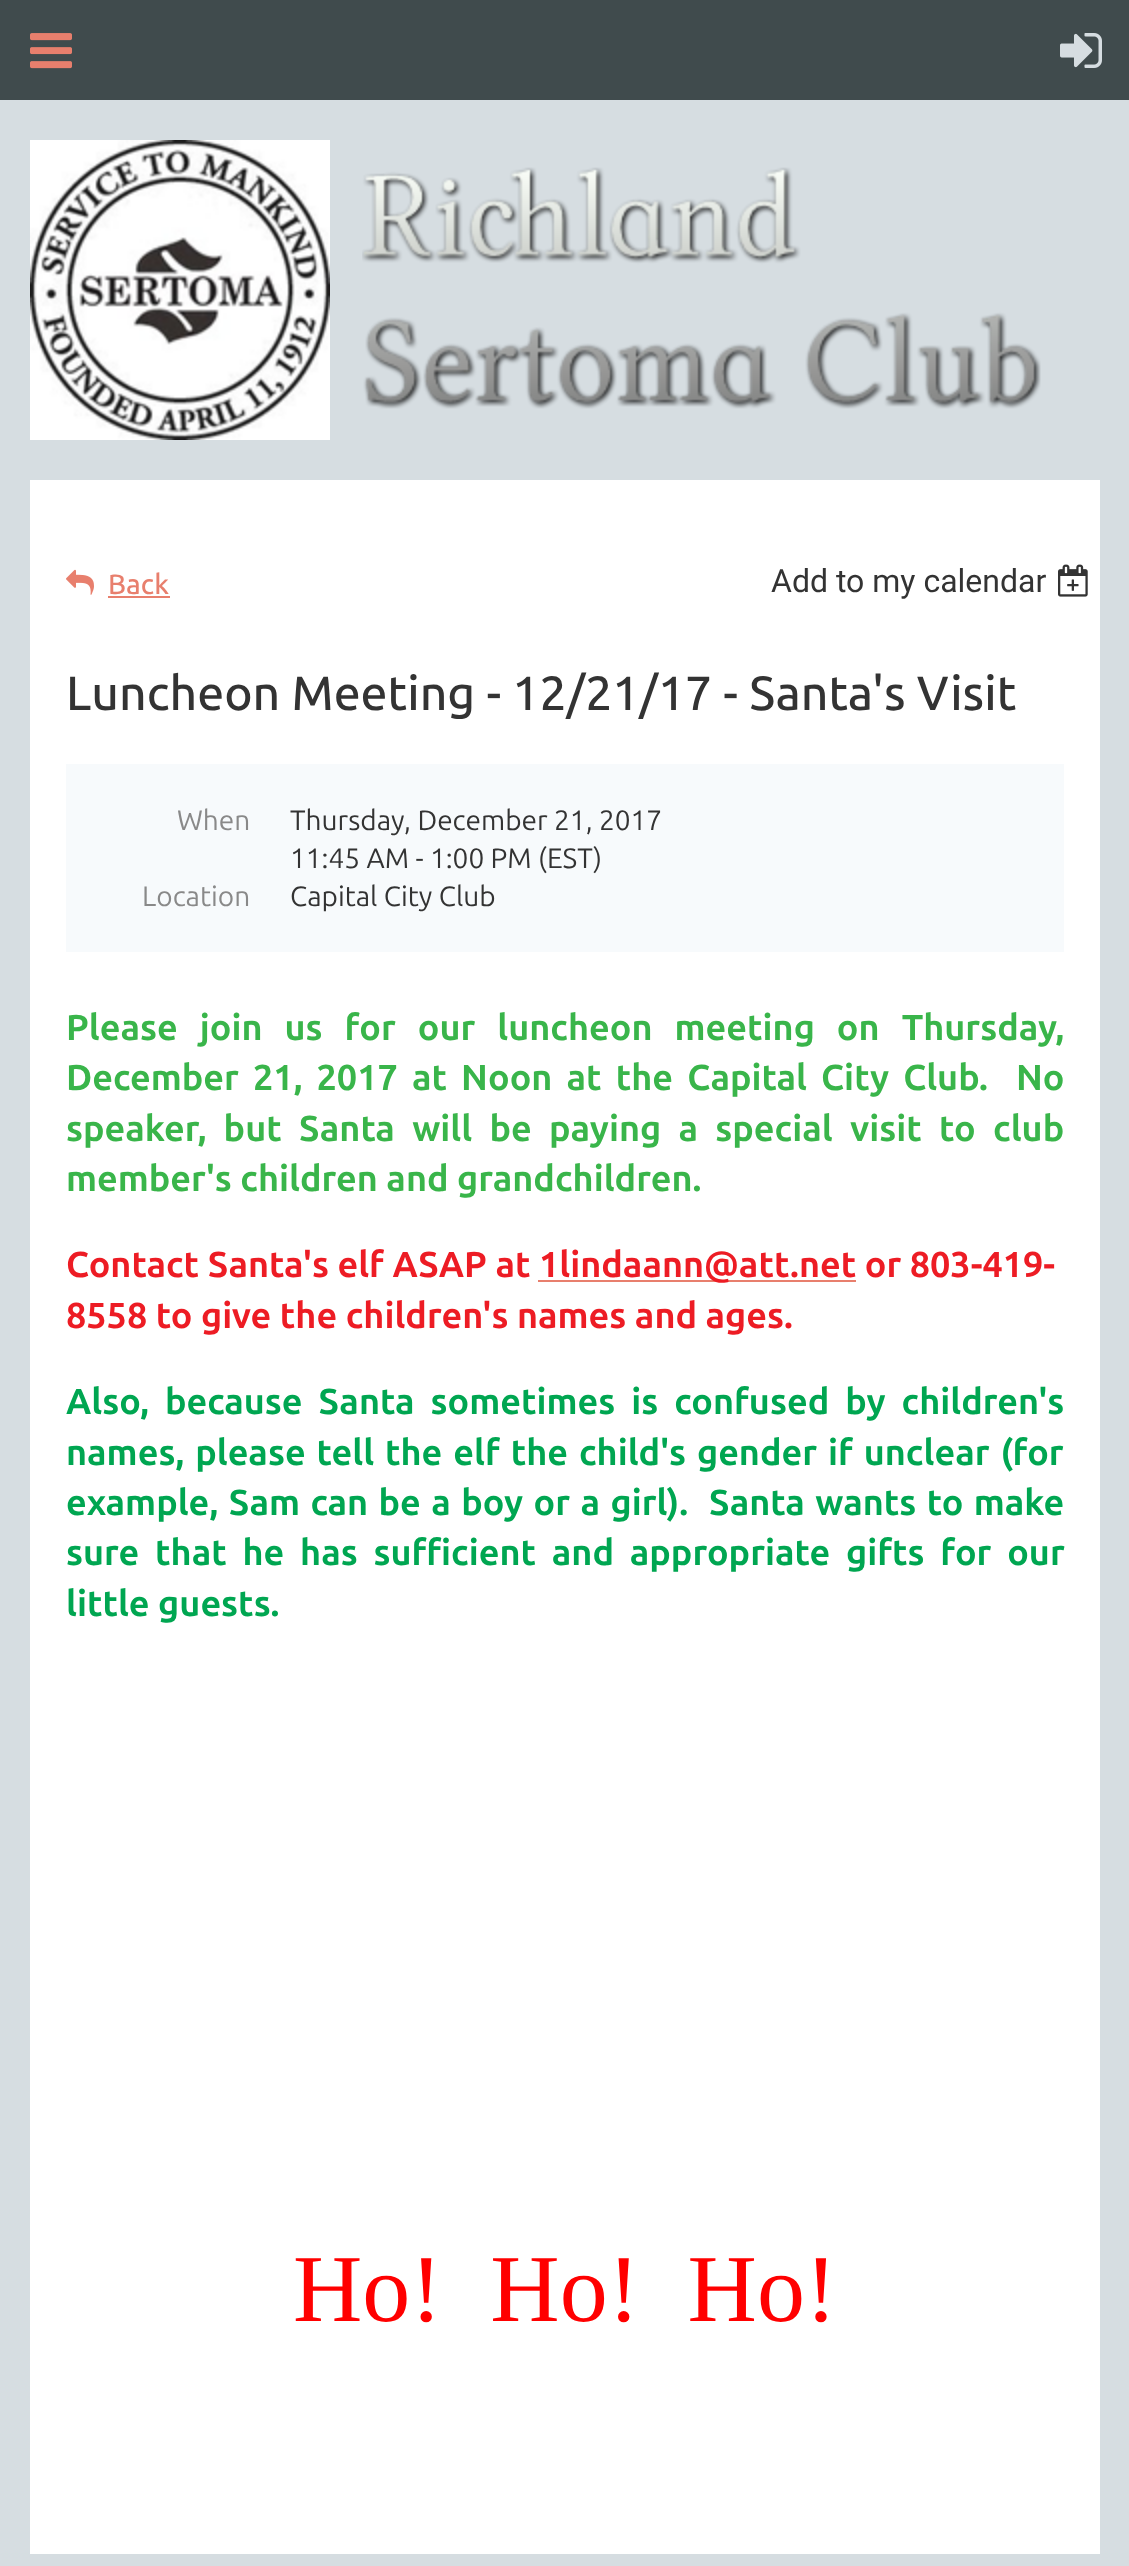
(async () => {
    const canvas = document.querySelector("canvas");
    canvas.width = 1129;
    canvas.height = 2566;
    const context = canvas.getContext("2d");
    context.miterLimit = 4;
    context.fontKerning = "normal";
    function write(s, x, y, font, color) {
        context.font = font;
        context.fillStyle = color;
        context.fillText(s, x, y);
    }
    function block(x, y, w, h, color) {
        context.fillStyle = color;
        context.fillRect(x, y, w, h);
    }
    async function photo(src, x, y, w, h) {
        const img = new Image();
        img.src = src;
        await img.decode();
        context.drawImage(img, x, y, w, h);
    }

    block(0, 0, 1129, 2566, "rgb(214, 221, 225)");
    block(0, 0, 1129, 100, "rgb(64, 75, 77)");
    await photo("media/1.png", 30, 33, 42, 36);
    await photo("media/2.png", 1060, 33, 42, 35);
    await photo("media/3.png", 30, 140, 300, 300);
    await photo("media/4.png", 362, 167, 679, 242);
    block(30, 480, 1070, 2074, "rgb(255, 255, 255)");
    await photo("media/5.png", 66, 569, 28, 26);
    write("Back", 108, 594, "500 28px Ubuntu", "rgb(232, 127, 109)");
    block(108, 596, 62, 2, "rgb(232, 127, 109)");
    write("Add to my calendar", 771, 592, "32px Roboto", "rgb(51, 51, 51)");
    await photo("media/6.png", 1058, 564, 30, 33);
    write("Luncheon Meeting - 12/21/17 - Santa's Visit", 66, 710, "500 48px Ubuntu", "rgb(51, 51, 51)");
    block(66, 764, 998, 188, "rgb(247, 250, 252)");
    write("When", 177, 830, "28px Ubuntu", "rgb(137, 137, 137)");
    write("Thursday, December 21, 2017", 290, 830, "28px Ubuntu", "rgb(51, 51, 51)");
    write("11:45 AM - 1:00 PM (EST)", 290, 868, "28px Ubuntu", "rgb(51, 51, 51)");
    write("Location", 142, 906, "28px Ubuntu", "rgb(137, 137, 137)");
    write("Capital City Club", 290, 906, "28px Ubuntu", "rgb(51, 51, 51)");
    context.wordSpacing = "13.5px";
    write("Please join us for our luncheon meeting on Thursday,", 66, 1040, "bold 36px Ubuntu", "rgb(57, 181, 74)");
    context.wordSpacing = "5.6px";
    write("December 21, 2017 at Noon at the Capital City Club.  No", 66, 1090, "bold 36px Ubuntu", "rgb(57, 181, 74)");
    context.wordSpacing = "8.75px";
    write("speaker, but Santa will be paying a special visit to club", 66, 1141, "bold 36px Ubuntu", "rgb(57, 181, 74)");
    context.wordSpacing = "0px";
    write("member's children and grandchildren.", 66, 1191, "bold 36px Ubuntu", "rgb(57, 181, 74)");
    write("Contact Santa's elf ASAP at", 66, 1277, "bold 36px Ubuntu", "rgb(237, 28, 36)");
    block(538, 1280, 318, 2, "rgb(232, 127, 109)");
    write("1lindaann@att.net or 803-419-", 539, 1277, "bold 36px Ubuntu", "rgb(237, 28, 36)");
    write("8558 to give the children's names and ages.", 66, 1328, "bold 36px Ubuntu", "rgb(237, 28, 36)");
    context.wordSpacing = "7.5px";
    write("Also, because Santa sometimes is confused by children's", 66, 1414, "bold 36px Ubuntu", "rgb(0, 166, 81)");
    context.wordSpacing = "2.4px";
    write("names, please tell the elf the child's gender if unclear (for", 66, 1465, "bold 36px Ubuntu", "rgb(0, 166, 81)");
    context.wordSpacing = "1.9px";
    write("example, Sam can be a boy or a girl).  Santa wants to make", 66, 1515, "bold 36px Ubuntu", "rgb(0, 166, 81)");
    context.wordSpacing = "7.25px";
    write("sure that he has sufficient and appropriate gifts for our", 66, 1565, "bold 36px Ubuntu", "rgb(0, 166, 81)");
    context.wordSpacing = "0px";
    write("little guests.", 66, 1616, "bold 36px Ubuntu", "rgb(0, 166, 81)");
    write("Ho!  Ho!  Ho!", 293, 2321, "96px Liberation Serif", "rgb(255, 0, 0)");
})();
